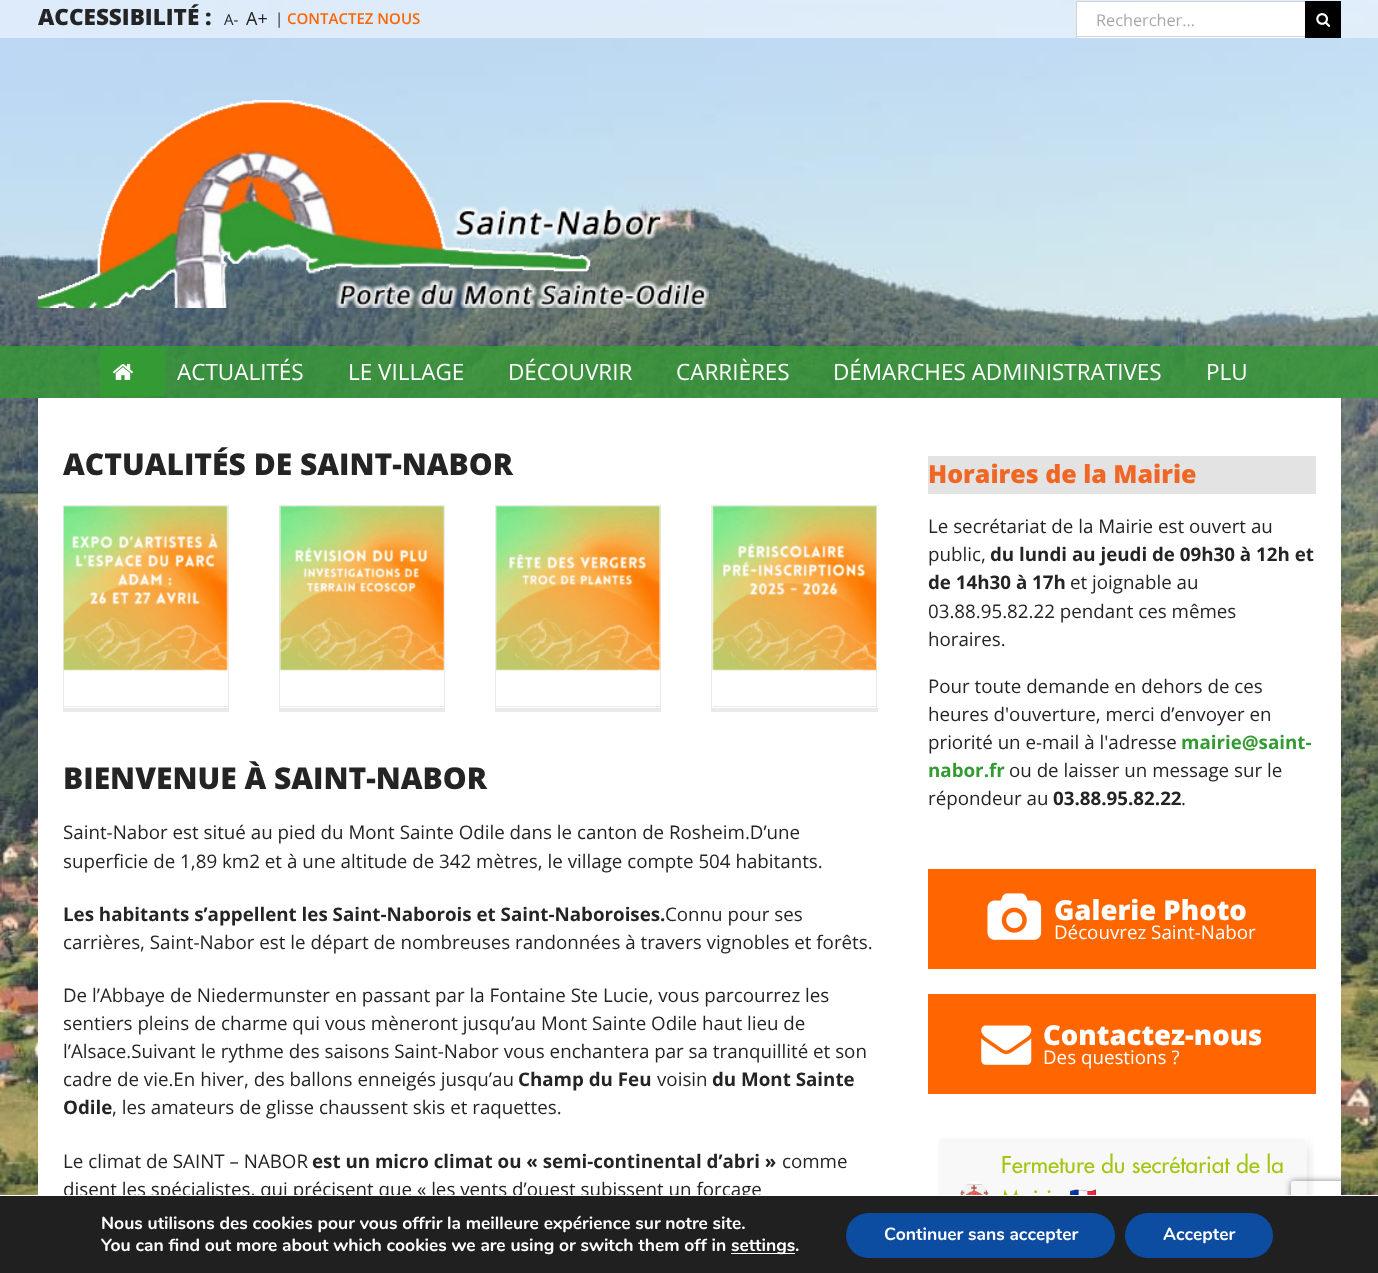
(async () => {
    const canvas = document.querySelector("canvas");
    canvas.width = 1378;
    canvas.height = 1273;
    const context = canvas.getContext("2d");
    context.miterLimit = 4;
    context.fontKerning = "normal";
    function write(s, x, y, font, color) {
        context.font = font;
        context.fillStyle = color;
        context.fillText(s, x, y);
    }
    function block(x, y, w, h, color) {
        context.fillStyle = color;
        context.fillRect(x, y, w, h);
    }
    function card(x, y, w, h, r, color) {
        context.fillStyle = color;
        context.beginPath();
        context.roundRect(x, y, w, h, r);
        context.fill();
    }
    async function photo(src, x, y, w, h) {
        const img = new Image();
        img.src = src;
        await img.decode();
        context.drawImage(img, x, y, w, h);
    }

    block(0, 0, 1378, 1273, "rgb(255, 255, 255)");
    await photo("media/1.png", 0, 0, 1378, 1195);
    block(0, 0, 1378, 38, "rgba(255, 255, 255, 0.5)");
    write("ACCESSIBILITÉ :", 38, 25, "800 22.5px Open Sans", "rgb(36, 36, 36)");
    write("A-", 224, 25, "15px Open Sans", "rgb(36, 36, 36)");
    write("A+", 246, 25, "18px Open Sans", "rgb(36, 36, 36)");
    write("|", 275, 24, "15px Open Sans", "rgb(36, 36, 36)");
    write("CONTACTEZ NOUS", 287, 24, "600 15px Open Sans", "rgb(255, 102, 0)");
    block(1077, 2, 228, 36, "rgb(255, 255, 255)");
    block(1076, 1, 229, 1, "rgb(210, 210, 210)");
    block(1076, 36, 229, 1, "rgb(210, 210, 210)");
    block(1076, 1, 1, 37, "rgb(210, 210, 210)");
    write("Rechercher...", 1096, 26, "16.25px Open Sans", "rgb(170, 169, 169)");
    block(1305, 1, 36, 37, "rgb(0, 0, 0)");
    await photo("media/2.png", 1316, 13, 15, 14);
    await photo("media/3.png", 38, 100, 671, 208);
    block(0, 346, 1378, 52, "rgba(52, 154, 52, 0.8)");
    block(100, 346, 65, 50, "rgb(52, 154, 52)");
    await photo("media/4.png", 112, 363, 21, 17);
    write("ACTUALITÉS", 177, 380, "22.5px Open Sans", "rgb(255, 255, 255)");
    write("LE VILLAGE", 348, 380, "22.5px Open Sans", "rgb(255, 255, 255)");
    write("DÉCOUVRIR", 508, 380, "22.5px Open Sans", "rgb(255, 255, 255)");
    write("CARRIÈRES", 676, 380, "22.5px Open Sans", "rgb(255, 255, 255)");
    write("DÉMARCHES ADMINISTRATIVES", 833, 380, "22.5px Open Sans", "rgb(255, 255, 255)");
    write("PLU", 1206, 380, "22.5px Open Sans", "rgb(255, 255, 255)");
    block(38, 398, 1303, 797, "rgb(255, 255, 255)");
    write("ACTUALITÉS DE SAINT-NABOR", 63, 475, "800 30px Open Sans", "rgb(36, 36, 36)");
    block(63, 505, 166, 1, "rgb(235, 234, 234)");
    block(228, 505, 1, 206, "rgb(235, 234, 234)");
    block(63, 708, 166, 4, "rgb(235, 234, 234)");
    block(63, 505, 1, 206, "rgb(235, 234, 234)");
    block(64, 706, 164, 1, "rgb(235, 234, 234)");
    await photo("media/5.png", 63, 506, 165, 165);
    block(279, 505, 166, 1, "rgb(235, 234, 234)");
    block(444, 505, 1, 206, "rgb(235, 234, 234)");
    block(279, 708, 166, 4, "rgb(235, 234, 234)");
    block(279, 505, 1, 206, "rgb(235, 234, 234)");
    block(280, 706, 164, 1, "rgb(235, 234, 234)");
    await photo("media/6.png", 279, 506, 165, 165);
    block(495, 505, 166, 1, "rgb(235, 234, 234)");
    block(660, 505, 1, 206, "rgb(235, 234, 234)");
    block(495, 708, 166, 4, "rgb(235, 234, 234)");
    block(495, 505, 1, 206, "rgb(235, 234, 234)");
    block(496, 706, 164, 1, "rgb(235, 234, 234)");
    await photo("media/7.png", 496, 506, 165, 165);
    block(711, 505, 167, 1, "rgb(235, 234, 234)");
    block(876, 505, 1, 206, "rgb(235, 234, 234)");
    block(711, 708, 167, 4, "rgb(235, 234, 234)");
    block(711, 505, 1, 206, "rgb(235, 234, 234)");
    block(713, 706, 163, 1, "rgb(235, 234, 234)");
    await photo("media/8.png", 712, 506, 165, 165);
    write("BIENVENUE À SAINT-NABOR", 63, 789, "800 30px Open Sans", "rgb(36, 36, 36)");
    write("Saint-Nabor est situé au pied du Mont Sainte Odile dans le canton de Rosheim.D’une", 63, 839, "18.75px Open Sans", "rgb(36, 36, 36)");
    write("superficie de 1,89 km2 et à une altitude de 342 mètres, le village compte 504 habitants.", 63, 868, "18.75px Open Sans", "rgb(36, 36, 36)");
    write("Les habitants s’appellent les Saint-Naborois et Saint-Naboroises.", 63, 921, "bold 18.75px Open Sans", "rgb(36, 36, 36)");
    write("Connu pour ses", 665, 921, "18.75px Open Sans", "rgb(36, 36, 36)");
    write("carrières, Saint-Nabor est le départ de nombreuses randonnées à travers vignobles et forêts.", 63, 949, "18.75px Open Sans", "rgb(36, 36, 36)");
    write("De l’Abbaye de Niedermunster en passant par la Fontaine Ste Lucie, vous parcourrez les", 63, 1002, "18.75px Open Sans", "rgb(36, 36, 36)");
    write("sentiers pleins de charme qui vous mèneront jusqu’au Mont Sainte Odile haut lieu de", 63, 1030, "18.75px Open Sans", "rgb(36, 36, 36)");
    write("l’Alsace.Suivant le rythme des saisons Saint-Nabor vous enchantera par sa tranquillité et son", 63, 1058, "18.75px Open Sans", "rgb(36, 36, 36)");
    write("cadre de vie.En hiver, des ballons enneigés jusqu’au", 63, 1086, "18.75px Open Sans", "rgb(36, 36, 36)");
    write("Champ du Feu", 518, 1086, "bold 18.75px Open Sans", "rgb(36, 36, 36)");
    write("voisin", 657, 1086, "18.75px Open Sans", "rgb(36, 36, 36)");
    write("du Mont Sainte", 712, 1086, "bold 18.75px Open Sans", "rgb(36, 36, 36)");
    write("Odile", 63, 1114, "bold 18.75px Open Sans", "rgb(36, 36, 36)");
    write(", les amateurs de glisse chaussent skis et raquettes.", 112, 1114, "18.75px Open Sans", "rgb(36, 36, 36)");
    write("Le climat de SAINT – NABOR", 63, 1168, "18.75px Open Sans", "rgb(36, 36, 36)");
    write("est un micro climat ou « semi-continental d’abri »", 312, 1168, "bold 18.75px Open Sans", "rgb(36, 36, 36)");
    write("comme", 782, 1168, "18.75px Open Sans", "rgb(36, 36, 36)");
    write("disent les spécialistes, qui précisent que « les vents d’ouest subissent un forçage", 63, 1196, "18.75px Open Sans", "rgb(36, 36, 36)");
    block(928, 456, 388, 38, "rgb(227, 227, 227)");
    write("Horaires de la Mairie", 928, 483, "800 25px Open Sans", "rgb(240, 102, 37)");
    write("Le secrétariat de la Mairie est ouvert au", 928, 533, "18.75px Open Sans", "rgb(36, 36, 36)");
    write("public,", 928, 561, "18.75px Open Sans", "rgb(36, 36, 36)");
    write("du lundi au jeudi de 09h30 à 12h et", 990, 561, "bold 18.75px Open Sans", "rgb(36, 36, 36)");
    write("de 14h30 à 17h", 928, 589, "bold 18.75px Open Sans", "rgb(36, 36, 36)");
    write("et joignable au", 1070, 589, "18.75px Open Sans", "rgb(36, 36, 36)");
    write("03.88.95.82.22 pendant ces mêmes", 928, 618, "18.75px Open Sans", "rgb(36, 36, 36)");
    write("horaires.", 928, 646, "18.75px Open Sans", "rgb(36, 36, 36)");
    write("Pour toute demande en dehors de ces", 928, 693, "18.75px Open Sans", "rgb(36, 36, 36)");
    write("heures d'ouverture, merci d’envoyer en", 928, 721, "18.75px Open Sans", "rgb(36, 36, 36)");
    write("priorité un e-mail à l'adresse", 928, 749, "18.75px Open Sans", "rgb(36, 36, 36)");
    write("mairie@saint-", 1181, 749, "bold 18.75px Open Sans", "rgb(52, 154, 52)");
    write("nabor.fr", 928, 777, "bold 18.75px Open Sans", "rgb(52, 154, 52)");
    write("ou de laisser un message sur le", 1009, 777, "18.75px Open Sans", "rgb(36, 36, 36)");
    write("répondeur au", 928, 805, "18.75px Open Sans", "rgb(36, 36, 36)");
    write("03.88.95.82.22", 1053, 805, "bold 18.75px Open Sans", "rgb(36, 36, 36)");
    write(".", 1181, 805, "18.75px Open Sans", "rgb(36, 36, 36)");
    block(928, 869, 388, 100, "rgb(255, 102, 0)");
    await photo("media/9.png", 987, 893, 55, 47);
    write("Galerie Photo", 1054, 920, "800 27.5px Open Sans", "rgb(255, 255, 255)");
    write("Découvrez Saint-Nabor", 1054, 939, "18.75px Open Sans", "rgb(255, 255, 255)");
    block(928, 994, 388, 100, "rgb(255, 102, 0)");
    await photo("media/10.png", 981, 1025, 51, 40);
    write("Contactez-nous", 1043, 1045, "800 27.5px Open Sans", "rgb(255, 255, 255)");
    write("Des questions ?", 1043, 1064, "18.75px Open Sans", "rgb(255, 255, 255)");
    await photo("media/11.png", 938, 1138, 376, 57);
    context.save();
    context.beginPath();
    context.moveTo(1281, 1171);
    context.lineTo(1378, 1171);
    context.lineTo(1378, 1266);
    context.lineTo(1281, 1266);
    context.closePath();
    context.moveTo(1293.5, 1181);
    context.lineTo(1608.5, 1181);
    context.bezierCurveTo(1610, 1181, 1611, 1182, 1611, 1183.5);
    context.lineTo(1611, 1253.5);
    context.bezierCurveTo(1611, 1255, 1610, 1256, 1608.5, 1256);
    context.lineTo(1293.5, 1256);
    context.bezierCurveTo(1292, 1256, 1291, 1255, 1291, 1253.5);
    context.lineTo(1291, 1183.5);
    context.bezierCurveTo(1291, 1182, 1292, 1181, 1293.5, 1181);
    context.closePath();
    context.clip("evenodd");
    context.fillStyle = "rgb(128, 128, 128)";
    context.filter = "blur(3px)";
    context.beginPath();
    context.roundRect(1291, 1181, 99, 75, 2.5);
    context.fill();
    context.filter = "none";
    context.restore();
    block(0, 1196, 1378, 77, "rgb(32, 32, 32)");
    block(64, 1195, 1228, 1, "rgb(255, 255, 255)");
    write("Nous utilisons des cookies pour vous offrir la meilleure expérience sur notre site.", 101, 1229, "bold 17.5px Nunito", "rgb(255, 255, 255)");
    write("You can find out more about which cookies we are using or switch them off in", 101, 1251, "bold 17.5px Nunito", "rgb(255, 255, 255)");
    block(731, 1253, 64, 1, "rgb(255, 255, 255)");
    write("settings.", 731, 1251, "bold 17.5px Nunito", "rgb(255, 255, 255)");
    card(846, 1213, 269, 45, 22.5, "rgb(12, 77, 162)");
    write("Continuer sans accepter", 884, 1240, "bold 17.5px Nunito", "rgb(255, 255, 255)");
    card(1125, 1213, 148, 45, 22.5, "rgb(12, 77, 162)");
    write("Accepter", 1163, 1240, "bold 17.5px Nunito", "rgb(255, 255, 255)");
})();
